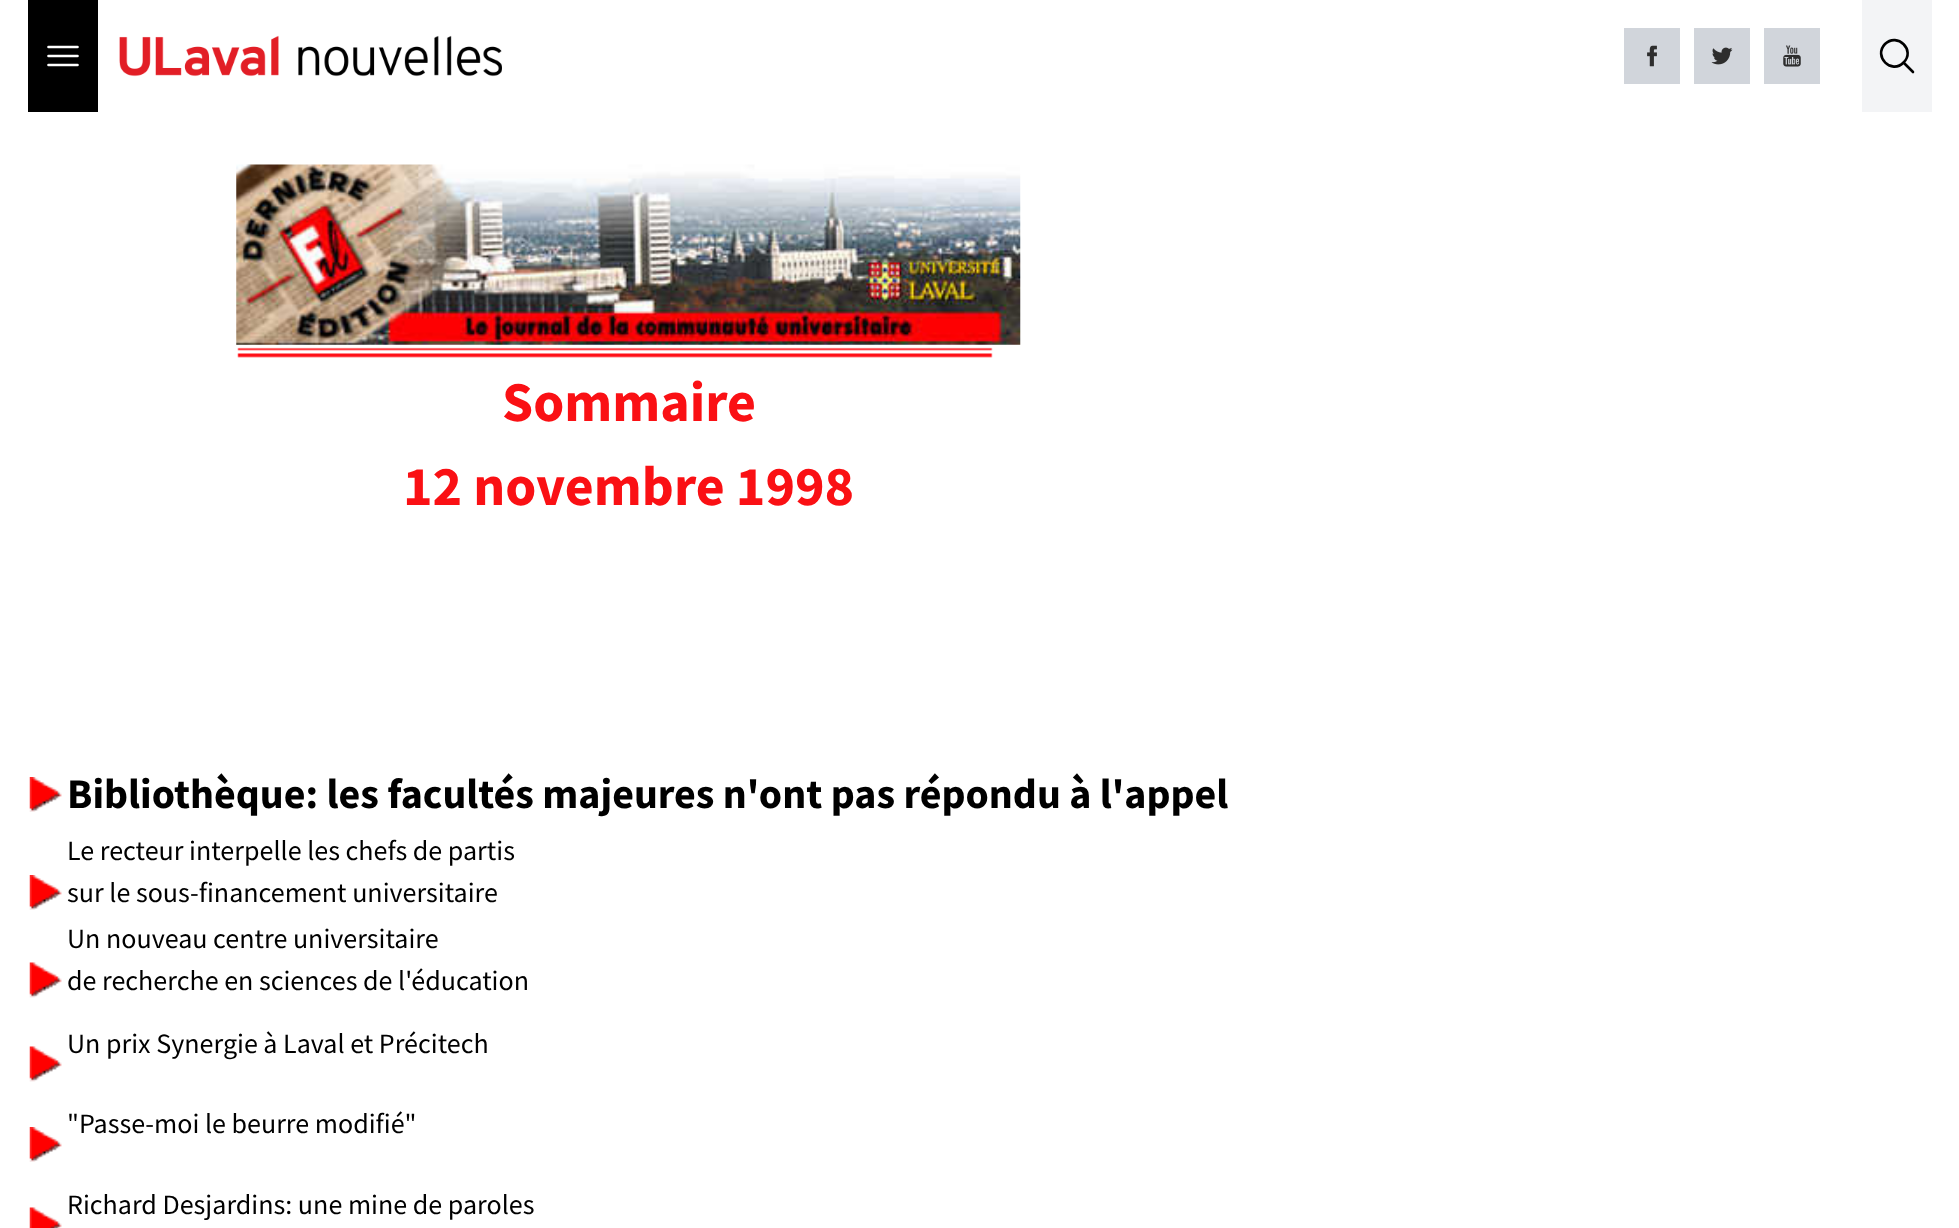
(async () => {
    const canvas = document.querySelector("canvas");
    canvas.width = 1959;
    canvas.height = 1228;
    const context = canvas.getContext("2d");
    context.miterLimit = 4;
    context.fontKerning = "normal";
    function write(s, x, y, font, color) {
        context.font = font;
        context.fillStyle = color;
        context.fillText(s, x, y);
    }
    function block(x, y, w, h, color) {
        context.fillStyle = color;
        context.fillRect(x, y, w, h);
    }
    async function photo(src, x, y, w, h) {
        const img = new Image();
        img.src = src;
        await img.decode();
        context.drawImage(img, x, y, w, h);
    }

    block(0, 0, 1959, 1228, "rgb(255, 255, 255)");
    block(28, 0, 70, 112, "rgb(0, 0, 0)");
    context.beginPath();
    context.moveTo(48.5, 47);
    context.lineTo(77.5, 47);
    context.moveTo(48.5, 56);
    context.lineTo(77.5, 56);
    context.moveTo(48.5, 65);
    context.lineTo(77.5, 65);
    context.strokeStyle = "rgb(255, 255, 255)";
    context.lineWidth = 2.6;
    context.lineCap = "round";
    context.lineJoin = "round";
    context.stroke();
    await photo("media/1.png", 119, 35, 383, 42);
    block(1624, 28, 56, 56, "rgb(209, 213, 219)");
    await photo("media/2.png", 1647, 45, 10, 22);
    block(1694, 28, 56, 56, "rgb(209, 213, 219)");
    await photo("media/3.png", 1711, 47, 22, 18);
    block(1764, 28, 56, 56, "rgb(209, 213, 219)");
    await photo("media/4.png", 1783, 45, 18, 22);
    block(1862, 0, 70, 112, "rgb(243, 244, 246)");
    context.beginPath();
    context.moveTo(1913, 72);
    context.lineTo(1903.5, 62.5);
    context.moveTo(1903.5, 62.5);
    context.bezierCurveTo(1916, 50.5, 1897.5, 32, 1885, 44);
    context.bezierCurveTo(1873, 56.5, 1891.5, 75, 1903.5, 62.5);
    context.closePath();
    context.strokeStyle = "rgb(0, 0, 0)";
    context.stroke();
    await photo("media/5.png", 236, 164, 785, 181);
    await photo("media/6.png", 237, 347, 756, 11);
    write("Sommaire", 502, 421, "bold 56px Source Sans Pro", "rgb(250, 16, 20)");
    write("12 novembre 1998", 403, 505, "bold 56px Source Sans Pro", "rgb(250, 16, 20)");
    await photo("media/7.png", 29, 777, 33, 35);
    write("Bibliothèque: les facultés majeures n'ont pas répondu à l'appel", 67, 808, "bold 42px Source Sans Pro", "rgb(0, 0, 0)");
    await photo("media/7.png", 29, 875, 33, 35);
    write("Le recteur interpelle les chefs de partis", 67, 860, "28px Source Sans Pro", "rgb(0, 0, 0)");
    write("sur le sous-financement universitaire", 67, 902, "28px Source Sans Pro", "rgb(0, 0, 0)");
    await photo("media/8.png", 29, 962, 33, 36);
    write("Un nouveau centre universitaire", 67, 948, "28px Source Sans Pro", "rgb(0, 0, 0)");
    write("de recherche en sciences de l'éducation", 67, 990, "28px Source Sans Pro", "rgb(0, 0, 0)");
    await photo("media/8.png", 29, 1046, 33, 36);
    write("Un prix Synergie à Laval et Précitech", 67, 1053, "28px Source Sans Pro", "rgb(0, 0, 0)");
    write("\"Passe-moi le beurre modifié\"", 67, 1133, "28px Source Sans Pro", "rgb(0, 0, 0)");
    await photo("media/7.png", 29, 1127, 33, 35);
    await photo("media/9.png", 29, 1207, 33, 21);
    write("Richard Desjardins: une mine de paroles", 67, 1214, "28px Source Sans Pro", "rgb(0, 0, 0)");
})();
